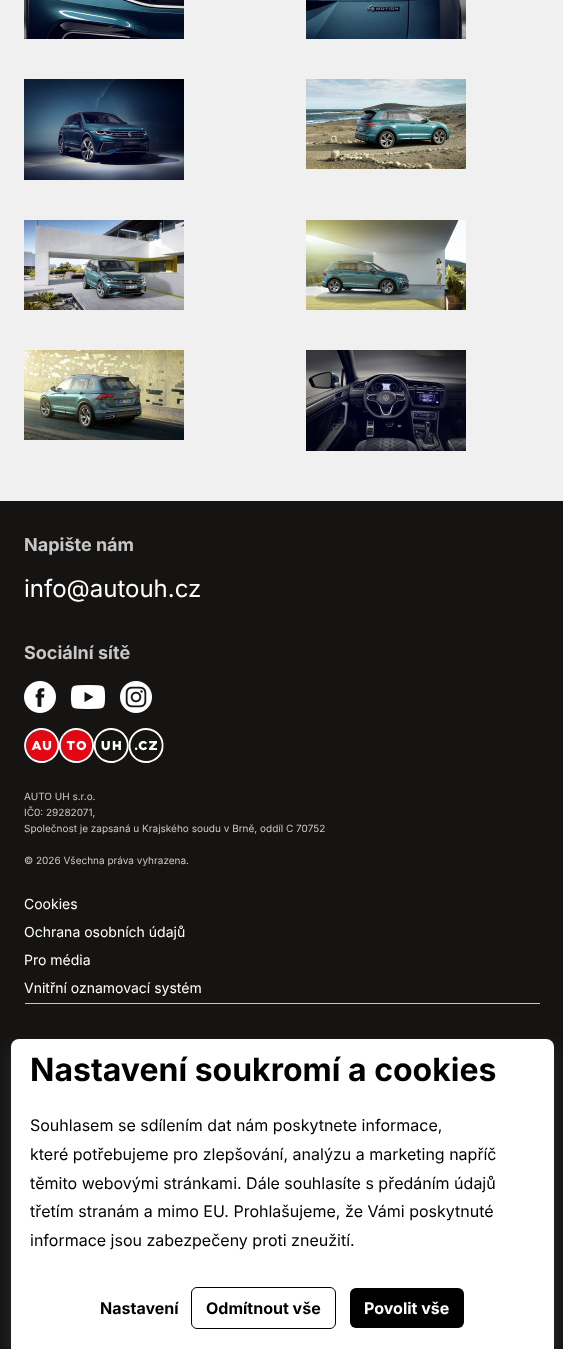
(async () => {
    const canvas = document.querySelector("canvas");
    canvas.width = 563;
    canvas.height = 1349;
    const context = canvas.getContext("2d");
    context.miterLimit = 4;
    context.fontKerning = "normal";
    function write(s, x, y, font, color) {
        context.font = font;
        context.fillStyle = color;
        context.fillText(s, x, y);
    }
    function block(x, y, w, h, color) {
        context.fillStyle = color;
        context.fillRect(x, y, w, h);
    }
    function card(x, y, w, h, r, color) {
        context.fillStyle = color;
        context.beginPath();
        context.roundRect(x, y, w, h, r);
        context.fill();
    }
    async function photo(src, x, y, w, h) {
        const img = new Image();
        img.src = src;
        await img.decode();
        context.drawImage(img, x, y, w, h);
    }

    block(0, 0, 563, 1349, "rgb(240, 240, 240)");
    await photo("media/1.png", 24, 0, 160, 39);
    await photo("media/2.png", 306, 0, 160, 39);
    await photo("media/3.png", 24, 79, 160, 101);
    await photo("media/4.png", 306, 79, 160, 90);
    await photo("media/5.png", 24, 220, 160, 90);
    await photo("media/6.png", 306, 220, 160, 90);
    await photo("media/7.png", 24, 350, 160, 90);
    await photo("media/8.png", 306, 350, 160, 101);
    block(0, 501, 563, 848, "rgb(22, 20, 18)");
    write("Napište nám", 24, 551, "bold 18px Inter", "rgb(199, 199, 199)");
    write("info@autouh.cz", 24, 597, "24px Inter", "rgb(255, 255, 255)");
    write("Sociální sítě", 24, 659, "bold 18px Inter", "rgb(199, 199, 199)");
    await photo("media/9.png", 24, 681, 32, 32);
    await photo("media/10.png", 70, 685, 36, 24);
    await photo("media/11.png", 120, 681, 32, 32);
    await photo("media/12.png", 24, 728, 140, 35);
    write("AUTO UH s.r.o.", 24, 800, "10px Inter", "rgb(199, 199, 199)");
    write("IČ0: 29282071,", 24, 816, "10px Inter", "rgb(199, 199, 199)");
    write("Společnost je zapsaná u Krajského soudu v Brně, oddíl C 70752", 24, 832, "10px Inter", "rgb(199, 199, 199)");
    write("© 2026 Všechna práva vyhrazena.", 24, 864, "10px Inter", "rgb(199, 199, 199)");
    write("Cookies", 24, 909, "14px Inter", "rgb(255, 255, 255)");
    write("Ochrana osobních údajů", 24, 937, "14px Inter", "rgb(255, 255, 255)");
    write("Pro média", 24, 965, "14px Inter", "rgb(255, 255, 255)");
    write("Vnitřní oznamovací systém", 24, 993, "14px Inter", "rgb(255, 255, 255)");
    block(25, 1003, 515, 1, "rgb(199, 199, 199)");
    context.fillStyle = "rgb(45, 45, 45)";
    context.filter = "blur(8px)";
    context.beginPath();
    context.roundRect(11, 1047, 543, 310, 8);
    context.fill();
    context.filter = "none";
    context.fillStyle = "rgb(255, 255, 255)";
    context.beginPath();
    context.roundRect(11, 1039, 543, 310, [8, 8, 0, 0]);
    context.fill();
    write("Nastavení soukromí a cookies", 30, 1081, "bold 32px Inter", "rgb(0, 0, 0)");
    write("Souhlasem se sdílením dat nám poskytnete informace,", 30, 1131, "16px Inter", "rgb(0, 0, 0)");
    write("které potřebujeme pro zlepšování, analýzu a marketing napříč", 30, 1160, "16px Inter", "rgb(0, 0, 0)");
    write("těmito webovými stránkami. Dále souhlasíte s předáním údajů", 30, 1189, "16px Inter", "rgb(0, 0, 0)");
    write("třetím stranám a mimo EU. Prohlašujeme, že Vámi poskytnuté", 30, 1217, "16px Inter", "rgb(0, 0, 0)");
    write("informace jsou zabezpečeny proti zneužití.", 30, 1246, "16px Inter", "rgb(0, 0, 0)");
    write("Nastavení", 100, 1314, "bold 16px Inter", "rgb(0, 0, 0)");
    context.beginPath();
    context.roundRect(191.5, 1287.5, 144, 41, 5.5);
    context.strokeStyle = "rgb(0, 0, 0)";
    context.stroke();
    write("Odmítnout vše", 206, 1314, "bold 16px Inter", "rgb(0, 0, 0)");
    card(350, 1288, 114, 40, 6, "rgb(0, 0, 0)");
    write("Povolit vše", 364, 1314, "bold 16px Inter", "rgb(255, 255, 255)");
})();
